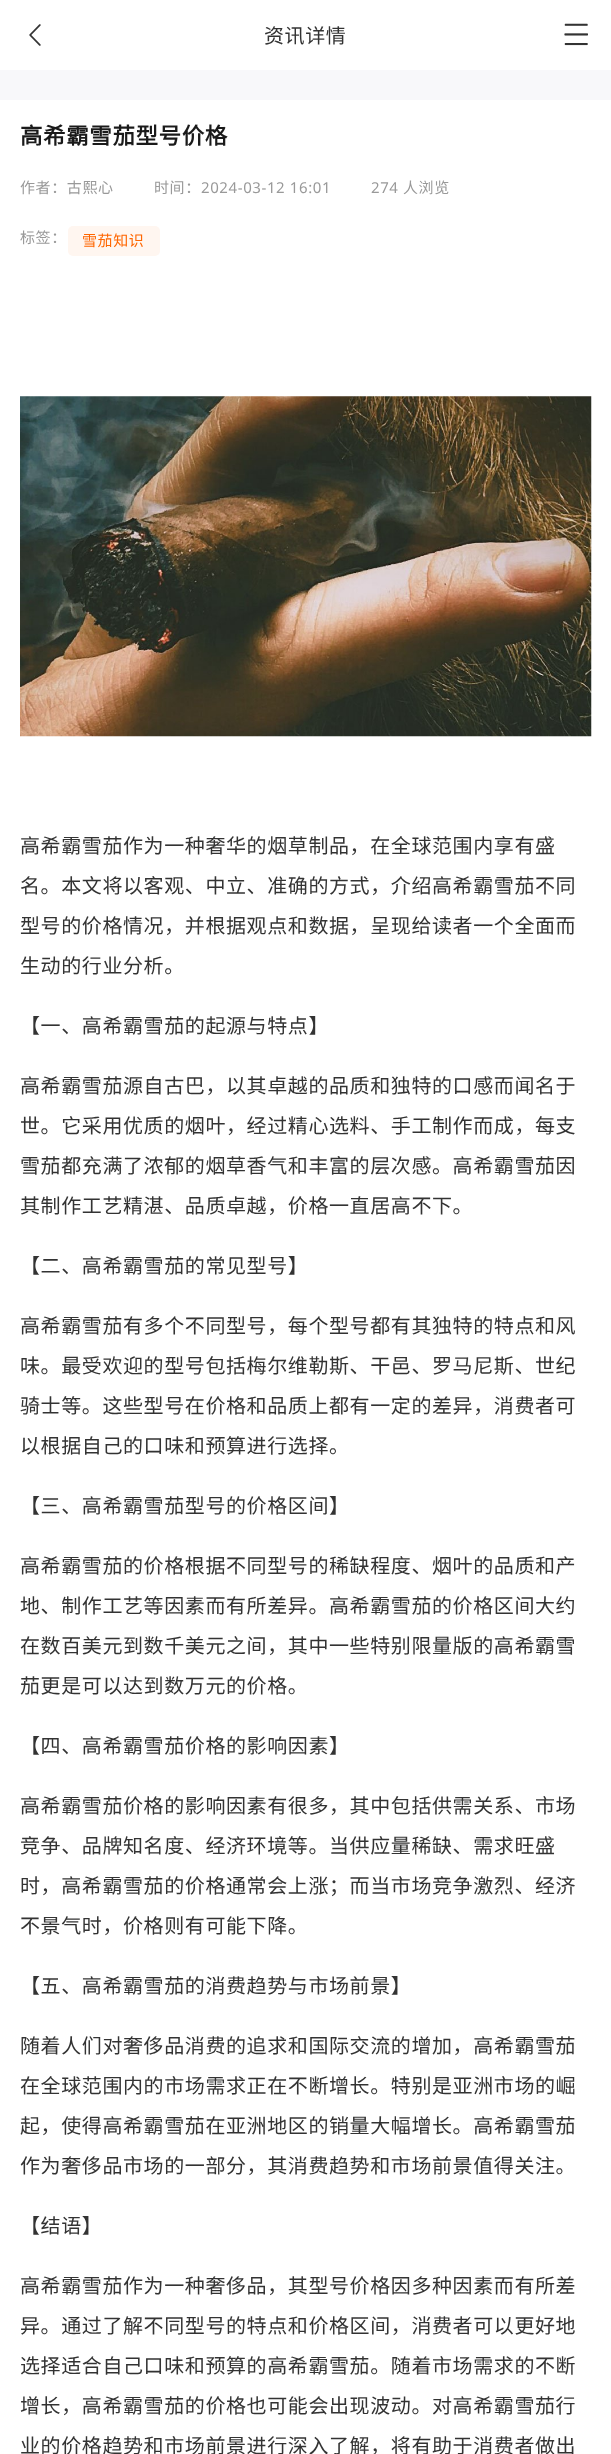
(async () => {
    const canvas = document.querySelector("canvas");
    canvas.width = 611;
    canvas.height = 2454;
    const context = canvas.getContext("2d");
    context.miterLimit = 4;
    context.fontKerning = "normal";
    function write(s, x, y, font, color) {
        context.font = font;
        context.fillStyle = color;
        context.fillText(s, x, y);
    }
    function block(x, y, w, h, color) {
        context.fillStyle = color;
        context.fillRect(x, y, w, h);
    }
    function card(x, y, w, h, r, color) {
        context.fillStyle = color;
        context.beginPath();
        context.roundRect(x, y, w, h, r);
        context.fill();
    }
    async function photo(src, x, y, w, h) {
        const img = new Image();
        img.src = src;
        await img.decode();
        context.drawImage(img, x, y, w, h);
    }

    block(0, 0, 611, 2454, "rgb(255, 255, 255)");
    await photo("media/1.png", 29, 24, 12, 22);
    context.letterSpacing = "0.6px";
    write("资讯详情", 264, 43, "20px Noto Sans CJK SC", "rgb(51, 51, 51)");
    await photo("media/2.png", 564, 23, 24, 23);
    block(0, 70, 611, 30, "rgb(248, 248, 250)");
    write("高希霸雪茄型号价格", 20, 144, "bold 22.5px Noto Sans CJK SC", "rgb(26, 26, 26)");
    write("作者：古熙心", 20, 193, "15px Noto Sans CJK SC", "rgb(153, 153, 153)");
    write("时间：", 154, 193, "15px Noto Sans CJK SC", "rgb(153, 153, 153)");
    write("2024-03-12 16:01", 201, 193, "15px Noto Sans", "rgb(153, 153, 153)");
    write("274", 371, 193, "15px Noto Sans", "rgb(153, 153, 153)");
    write("人浏览", 403, 193, "15px Noto Sans CJK SC", "rgb(153, 153, 153)");
    write("标签：", 20, 243, "15px Noto Sans CJK SC", "rgb(153, 153, 153)");
    card(68, 226, 92, 30, 5, "rgb(255, 246, 240)");
    write("雪茄知识", 82, 246, "15px Noto Sans CJK SC", "rgb(255, 102, 0)");
    await photo("media/3.png", 20, 396, 572, 341);
    write("高希霸雪茄作为一种奢华的烟草制品，在全球范围内享有盛", 20, 853, "20px Noto Sans CJK SC", "rgb(51, 51, 51)");
    write("名。本文将以客观、中立、准确的方式，介绍高希霸雪茄不同", 20, 893, "20px Noto Sans CJK SC", "rgb(51, 51, 51)");
    write("型号的价格情况，并根据观点和数据，呈现给读者一个全面而", 20, 933, "20px Noto Sans CJK SC", "rgb(51, 51, 51)");
    write("生动的行业分析。", 20, 973, "20px Noto Sans CJK SC", "rgb(51, 51, 51)");
    write("【一、高希霸雪茄的起源与特点】", 20, 1033, "20px Noto Sans CJK SC", "rgb(51, 51, 51)");
    write("高希霸雪茄源自古巴，以其卓越的品质和独特的口感而闻名于", 20, 1093, "20px Noto Sans CJK SC", "rgb(51, 51, 51)");
    write("世。它采用优质的烟叶，经过精心选料、手工制作而成，每支", 20, 1133, "20px Noto Sans CJK SC", "rgb(51, 51, 51)");
    write("雪茄都充满了浓郁的烟草香气和丰富的层次感。高希霸雪茄因", 20, 1173, "20px Noto Sans CJK SC", "rgb(51, 51, 51)");
    write("其制作工艺精湛、品质卓越，价格一直居高不下。", 20, 1213, "20px Noto Sans CJK SC", "rgb(51, 51, 51)");
    write("【二、高希霸雪茄的常见型号】", 20, 1273, "20px Noto Sans CJK SC", "rgb(51, 51, 51)");
    write("高希霸雪茄有多个不同型号，每个型号都有其独特的特点和风", 20, 1333, "20px Noto Sans CJK SC", "rgb(51, 51, 51)");
    write("味。最受欢迎的型号包括梅尔维勒斯、干邑、罗马尼斯、世纪", 20, 1373, "20px Noto Sans CJK SC", "rgb(51, 51, 51)");
    write("骑士等。这些型号在价格和品质上都有一定的差异，消费者可", 20, 1413, "20px Noto Sans CJK SC", "rgb(51, 51, 51)");
    write("以根据自己的口味和预算进行选择。", 20, 1453, "20px Noto Sans CJK SC", "rgb(51, 51, 51)");
    write("【三、高希霸雪茄型号的价格区间】", 20, 1513, "20px Noto Sans CJK SC", "rgb(51, 51, 51)");
    write("高希霸雪茄的价格根据不同型号的稀缺程度、烟叶的品质和产", 20, 1573, "20px Noto Sans CJK SC", "rgb(51, 51, 51)");
    write("地、制作工艺等因素而有所差异。高希霸雪茄的价格区间大约", 20, 1613, "20px Noto Sans CJK SC", "rgb(51, 51, 51)");
    write("在数百美元到数千美元之间，其中一些特别限量版的高希霸雪", 20, 1653, "20px Noto Sans CJK SC", "rgb(51, 51, 51)");
    write("茄更是可以达到数万元的价格。", 20, 1693, "20px Noto Sans CJK SC", "rgb(51, 51, 51)");
    write("【四、高希霸雪茄价格的影响因素】", 20, 1753, "20px Noto Sans CJK SC", "rgb(51, 51, 51)");
    write("高希霸雪茄价格的影响因素有很多，其中包括供需关系、市场", 20, 1813, "20px Noto Sans CJK SC", "rgb(51, 51, 51)");
    write("竞争、品牌知名度、经济环境等。当供应量稀缺、需求旺盛", 20, 1853, "20px Noto Sans CJK SC", "rgb(51, 51, 51)");
    write("时，高希霸雪茄的价格通常会上涨；而当市场竞争激烈、经济", 20, 1893, "20px Noto Sans CJK SC", "rgb(51, 51, 51)");
    write("不景气时，价格则有可能下降。", 20, 1933, "20px Noto Sans CJK SC", "rgb(51, 51, 51)");
    write("【五、高希霸雪茄的消费趋势与市场前景】", 20, 1993, "20px Noto Sans CJK SC", "rgb(51, 51, 51)");
    write("随着人们对奢侈品消费的追求和国际交流的增加，高希霸雪茄", 20, 2053, "20px Noto Sans CJK SC", "rgb(51, 51, 51)");
    write("在全球范围内的市场需求正在不断增长。特别是亚洲市场的崛", 20, 2093, "20px Noto Sans CJK SC", "rgb(51, 51, 51)");
    write("起，使得高希霸雪茄在亚洲地区的销量大幅增长。高希霸雪茄", 20, 2133, "20px Noto Sans CJK SC", "rgb(51, 51, 51)");
    write("作为奢侈品市场的一部分，其消费趋势和市场前景值得关注。", 20, 2173, "20px Noto Sans CJK SC", "rgb(51, 51, 51)");
    write("【结语】", 20, 2233, "20px Noto Sans CJK SC", "rgb(51, 51, 51)");
    write("高希霸雪茄作为一种奢侈品，其型号价格因多种因素而有所差", 20, 2293, "20px Noto Sans CJK SC", "rgb(51, 51, 51)");
    write("异。通过了解不同型号的特点和价格区间，消费者可以更好地", 20, 2333, "20px Noto Sans CJK SC", "rgb(51, 51, 51)");
    write("选择适合自己口味和预算的高希霸雪茄。随着市场需求的不断", 20, 2373, "20px Noto Sans CJK SC", "rgb(51, 51, 51)");
    write("增长，高希霸雪茄的价格也可能会出现波动。对高希霸雪茄行", 20, 2413, "20px Noto Sans CJK SC", "rgb(51, 51, 51)");
    write("业的价格趋势和市场前景进行深入了解，将有助于消费者做出", 20, 2453, "20px Noto Sans CJK SC", "rgb(51, 51, 51)");
})();
